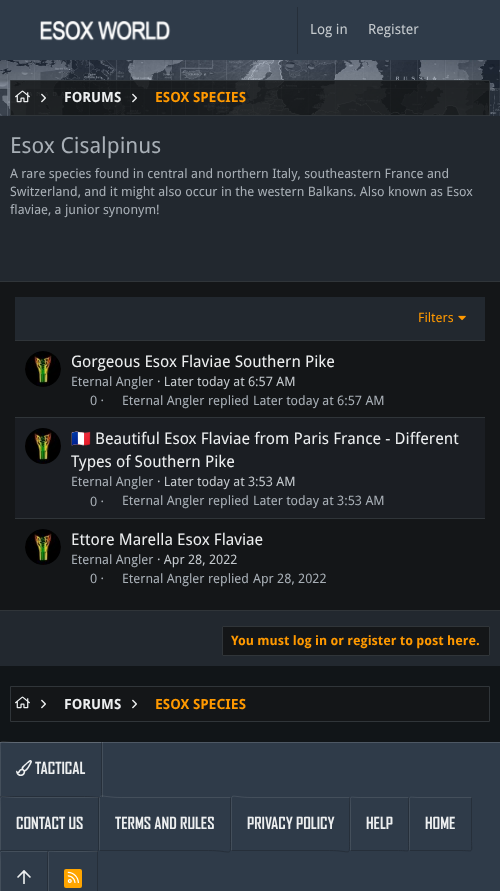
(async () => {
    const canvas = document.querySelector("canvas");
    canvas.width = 500;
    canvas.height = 891;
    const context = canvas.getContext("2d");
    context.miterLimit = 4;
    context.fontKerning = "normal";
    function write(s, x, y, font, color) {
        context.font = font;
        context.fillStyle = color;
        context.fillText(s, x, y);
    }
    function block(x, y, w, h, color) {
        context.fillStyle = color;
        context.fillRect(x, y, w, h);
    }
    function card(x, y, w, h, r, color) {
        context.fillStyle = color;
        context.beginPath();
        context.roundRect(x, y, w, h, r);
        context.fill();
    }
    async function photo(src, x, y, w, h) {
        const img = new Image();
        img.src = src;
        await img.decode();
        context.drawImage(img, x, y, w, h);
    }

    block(0, 0, 500, 891, "rgb(17, 21, 24)");
    await photo("media/1.png", 0, 60, 500, 56);
    block(0, 0, 500, 60, "rgb(47, 59, 73)");
    await photo("media/2.png", 40, 21, 131, 20);
    block(297, 7, 1, 47, "rgb(38, 47, 58)");
    write("Log in", 310, 34, "14px Droid Sans", "rgb(196, 201, 205)");
    write("Register", 368, 34, "14px Droid Sans", "rgb(196, 201, 205)");
    context.fillStyle = "rgba(20, 22, 24, 0.85)";
    context.beginPath();
    context.rect(10.5, 80.5, 479, 35);
    context.fill();
    context.strokeStyle = "rgb(48, 53, 57)";
    context.stroke();
    await photo("media/3.png", 15, 90, 15, 13);
    await photo("media/4.png", 41, 93, 5, 10);
    write("FORUMS", 64, 102, "bold 14px Droid Sans", "rgb(237, 239, 240)");
    await photo("media/5.png", 132, 93, 5, 10);
    write("ESOX SPECIES", 155, 102, "bold 14px Droid Sans", "rgb(255, 153, 0)");
    block(0, 116, 500, 550, "rgb(34, 40, 47)");
    write("Esox Cisalpinus", 10, 153, "22px Droid Sans", "rgb(168, 175, 182)");
    write("A rare species found in central and northern Italy, southeastern France and", 10, 178, "13px Droid Sans", "rgb(168, 175, 182)");
    write("Switzerland, and it might also occur in the western Balkans. Also known as Esox", 10, 196, "13px Droid Sans", "rgb(168, 175, 182)");
    write("flaviae, a junior synonym!", 10, 214, "13px Droid Sans", "rgb(168, 175, 182)");
    block(0, 282, 500, 328, "rgb(20, 22, 24)");
    block(0, 281, 500, 1, "rgb(48, 53, 57)");
    block(0, 610, 500, 1, "rgb(48, 53, 57)");
    block(15, 297, 470, 43, "rgb(34, 40, 47)");
    write("Filters", 418, 322, "13px Droid Sans", "rgb(255, 153, 0)");
    await photo("media/6.png", 458, 315, 8, 6);
    block(15, 340, 470, 1, "rgb(48, 53, 57)");
    await photo("media/7.png", 25, 351, 36, 36);
    write("Gorgeous Esox Flaviae Southern Pike", 71, 367, "16px Droid Sans", "rgb(237, 239, 240)");
    write("Eternal Angler", 71, 386, "13px Droid Sans", "rgb(168, 175, 182)");
    write("· Later today at 6:57 AM", 157, 386, "13px Droid Sans", "rgb(196, 201, 205)");
    write("0 ·", 90, 405, "13px Droid Sans", "rgb(168, 175, 182)");
    write("Eternal Angler replied", 122, 405, "13px Droid Sans", "rgb(168, 175, 182)");
    write("Later today at 6:57 AM", 253, 405, "13px Droid Sans", "rgb(168, 175, 182)");
    block(15, 418, 470, 100, "rgb(27, 30, 35)");
    block(15, 417, 470, 1, "rgb(48, 53, 57)");
    context.fillStyle = "rgb(20, 22, 24)";
    context.beginPath();
    context.arc(43, 446, 18, 0, Math.PI * 2);
    context.fill();
    await photo("media/8.png", 25, 428, 36, 36);
    write("🇫🇷", 71, 444, "16px Noto Color Emoji", "rgb(237, 239, 240)");
    write("Beautiful Esox Flaviae from Paris France - Different", 95, 444, "16px Droid Sans", "rgb(237, 239, 240)");
    write("Types of Southern Pike", 71, 467, "16px Droid Sans", "rgb(237, 239, 240)");
    write("Eternal Angler", 71, 486, "13px Droid Sans", "rgb(168, 175, 182)");
    write("· Later today at 3:53 AM", 157, 486, "13px Droid Sans", "rgb(196, 201, 205)");
    write("0 ·", 90, 506, "13px Droid Sans", "rgb(168, 175, 182)");
    write("Eternal Angler replied", 122, 505, "13px Droid Sans", "rgb(168, 175, 182)");
    write("Later today at 3:53 AM", 253, 505, "13px Droid Sans", "rgb(168, 175, 182)");
    block(15, 518, 470, 1, "rgb(48, 53, 57)");
    await photo("media/7.png", 25, 529, 36, 36);
    write("Ettore Marella Esox Flaviae", 71, 545, "16px Droid Sans", "rgb(237, 239, 240)");
    write("Eternal Angler", 71, 564, "13px Droid Sans", "rgb(168, 175, 182)");
    write("· Apr 28, 2022", 157, 564, "13px Droid Sans", "rgb(196, 201, 205)");
    write("0 ·", 90, 583, "13px Droid Sans", "rgb(168, 175, 182)");
    write("Eternal Angler replied", 122, 583, "13px Droid Sans", "rgb(168, 175, 182)");
    write("Apr 28, 2022", 253, 583, "13px Droid Sans", "rgb(168, 175, 182)");
    context.fillStyle = "rgb(20, 22, 24)";
    context.beginPath();
    context.roundRect(222.5, 626.5, 267, 29, 0.5);
    context.fill();
    context.stroke();
    write("You must log in or register to post here.", 231, 645, "bold 13px Droid Sans", "rgb(255, 153, 0)");
    context.fillStyle = "rgb(20, 22, 24)";
    context.beginPath();
    context.rect(10.5, 686.5, 479, 35);
    context.fill();
    context.stroke();
    await photo("media/9.png", 15, 696, 15, 13);
    await photo("media/10.png", 41, 699, 5, 10);
    write("FORUMS", 64, 709, "bold 14px Droid Sans", "rgb(237, 239, 240)");
    await photo("media/10.png", 132, 699, 5, 10);
    write("ESOX SPECIES", 155, 709, "bold 14px Droid Sans", "rgb(255, 153, 0)");
    block(0, 743, 500, 148, "rgb(47, 59, 73)");
    block(102, 742, 1, 55, "rgb(68, 79, 91)");
    block(0, 742, 500, 1, "rgb(78, 88, 100)");
    block(102, 742, 1, 1, "rgb(96, 105, 116)");
    context.beginPath();
    context.moveTo(101.5, 742.5);
    context.lineTo(101.5, 787);
    context.bezierCurveTo(101.5, 802, 104, 796.5, 84.5, 796.5);
    context.lineTo(0.5, 796.5);
    context.strokeStyle = "rgb(38, 47, 58)";
    context.stroke();
    context.beginPath();
    context.moveTo(0.5, 796.5);
    context.lineTo(0.5, 752);
    context.bezierCurveTo(0.5, 737, -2, 742.5, 17.5, 742.5);
    context.lineTo(101.5, 742.5);
    context.strokeStyle = "rgba(255, 255, 255, 0.1)";
    context.stroke();
    await photo("media/11.png", 16, 760, 16, 16);
    write("TACTICAL", 35, 774, "bold 16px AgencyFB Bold", "rgb(237, 239, 240)");
    context.fillStyle = "rgb(38, 47, 58)";
    context.beginPath();
    context.moveTo(0, 797);
    context.bezierCurveTo(-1, 797, -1, 797, -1, 798);
    context.lineTo(-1, 850);
    context.bezierCurveTo(-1, 851, -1, 851, 0, 851);
    context.lineTo(1, 851);
    context.lineTo(0, 850);
    context.lineTo(0, 798);
    context.lineTo(1, 797);
    context.closePath();
    context.fill();
    context.beginPath();
    context.moveTo(98.5, 797.5);
    context.lineTo(98.5, 841.5);
    context.bezierCurveTo(98.5, 855.5, 101, 850.5, 82, 850.5);
    context.lineTo(0.5, 850.5);
    context.strokeStyle = "rgba(0, 0, 0, 0.2)";
    context.stroke();
    context.beginPath();
    context.moveTo(0.5, 850.5);
    context.lineTo(0.5, 806.5);
    context.bezierCurveTo(0.5, 792.5, -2, 797.5, 17, 797.5);
    context.lineTo(98.5, 797.5);
    context.strokeStyle = "rgba(255, 255, 255, 0.1)";
    context.stroke();
    write("CONTACT US", 16, 829, "bold 16px AgencyFB Bold", "rgb(237, 239, 240)");
    context.beginPath();
    context.moveTo(230.5, 797.5);
    context.lineTo(230.5, 841.5);
    context.bezierCurveTo(230.5, 857.5, 232.5, 850.5, 208.5, 850.5);
    context.lineTo(99.5, 850.5);
    context.strokeStyle = "rgb(38, 47, 58)";
    context.stroke();
    context.beginPath();
    context.moveTo(99.5, 850.5);
    context.lineTo(99.5, 806.5);
    context.bezierCurveTo(99.5, 790.5, 97.5, 797.5, 121.5, 797.5);
    context.lineTo(230.5, 797.5);
    context.strokeStyle = "rgba(255, 255, 255, 0.1)";
    context.stroke();
    write("TERMS AND RULES", 115, 829, "bold 16px AgencyFB Bold", "rgb(237, 239, 240)");
    context.beginPath();
    context.moveTo(349.5, 797.5);
    context.lineTo(349.5, 841.5);
    context.bezierCurveTo(349.5, 857, 351.5, 850.5, 329.5, 850.5);
    context.lineTo(231.5, 850.5);
    context.strokeStyle = "rgb(38, 47, 58)";
    context.stroke();
    context.beginPath();
    context.moveTo(231.5, 850.5);
    context.lineTo(231.5, 806.5);
    context.bezierCurveTo(231.5, 791, 229.5, 797.5, 251.5, 797.5);
    context.lineTo(349.5, 797.5);
    context.strokeStyle = "rgba(255, 255, 255, 0.1)";
    context.stroke();
    write("PRIVACY POLICY", 247, 829, "bold 16px AgencyFB Bold", "rgb(237, 239, 240)");
    context.beginPath();
    context.moveTo(408.5, 797.5);
    context.lineTo(408.5, 841.5);
    context.bezierCurveTo(408.5, 853.5, 411, 850.5, 398.5, 850.5);
    context.lineTo(350.5, 850.5);
    context.strokeStyle = "rgb(38, 47, 58)";
    context.stroke();
    context.beginPath();
    context.moveTo(350.5, 850.5);
    context.lineTo(350.5, 806.5);
    context.bezierCurveTo(350.5, 794.5, 348, 797.5, 360.5, 797.5);
    context.lineTo(408.5, 797.5);
    context.strokeStyle = "rgba(255, 255, 255, 0.1)";
    context.stroke();
    write("HELP", 366, 829, "bold 16px AgencyFB Bold", "rgb(237, 239, 240)");
    context.beginPath();
    context.moveTo(471.5, 797.5);
    context.lineTo(471.5, 841.5);
    context.bezierCurveTo(471.5, 853.5, 474, 850.5, 461, 850.5);
    context.lineTo(409.5, 850.5);
    context.strokeStyle = "rgb(38, 47, 58)";
    context.stroke();
    context.beginPath();
    context.moveTo(409.5, 850.5);
    context.lineTo(409.5, 806.5);
    context.bezierCurveTo(409.5, 794.5, 407, 797.5, 420, 797.5);
    context.lineTo(471.5, 797.5);
    context.strokeStyle = "rgba(255, 255, 255, 0.1)";
    context.stroke();
    write("HOME", 425, 829, "bold 16px AgencyFB Bold", "rgb(237, 239, 240)");
    context.beginPath();
    context.moveTo(47.5, 851.5);
    context.lineTo(47.5, 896);
    context.bezierCurveTo(47.5, 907.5, 50, 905.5, 39.5, 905.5);
    context.lineTo(0.5, 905.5);
    context.strokeStyle = "rgb(38, 47, 58)";
    context.stroke();
    context.beginPath();
    context.moveTo(0.5, 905.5);
    context.lineTo(0.5, 861);
    context.bezierCurveTo(0.5, 849.5, -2, 851.5, 8.5, 851.5);
    context.lineTo(47.5, 851.5);
    context.strokeStyle = "rgba(255, 255, 255, 0.1)";
    context.stroke();
    await photo("media/12.png", 17, 870, 14, 14);
    context.beginPath();
    context.moveTo(97.5, 851.5);
    context.lineTo(97.5, 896);
    context.bezierCurveTo(97.5, 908, 100, 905.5, 89, 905.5);
    context.lineTo(48.5, 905.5);
    context.strokeStyle = "rgb(38, 47, 58)";
    context.stroke();
    context.beginPath();
    context.moveTo(48.5, 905.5);
    context.lineTo(48.5, 861);
    context.bezierCurveTo(48.5, 849, 46, 851.5, 57, 851.5);
    context.lineTo(97.5, 851.5);
    context.strokeStyle = "rgba(255, 255, 255, 0.1)";
    context.stroke();
    card(64, 869, 18, 19, 2, "rgb(255, 165, 0)");
    await photo("media/13.png", 67, 871, 12, 12);
})();
